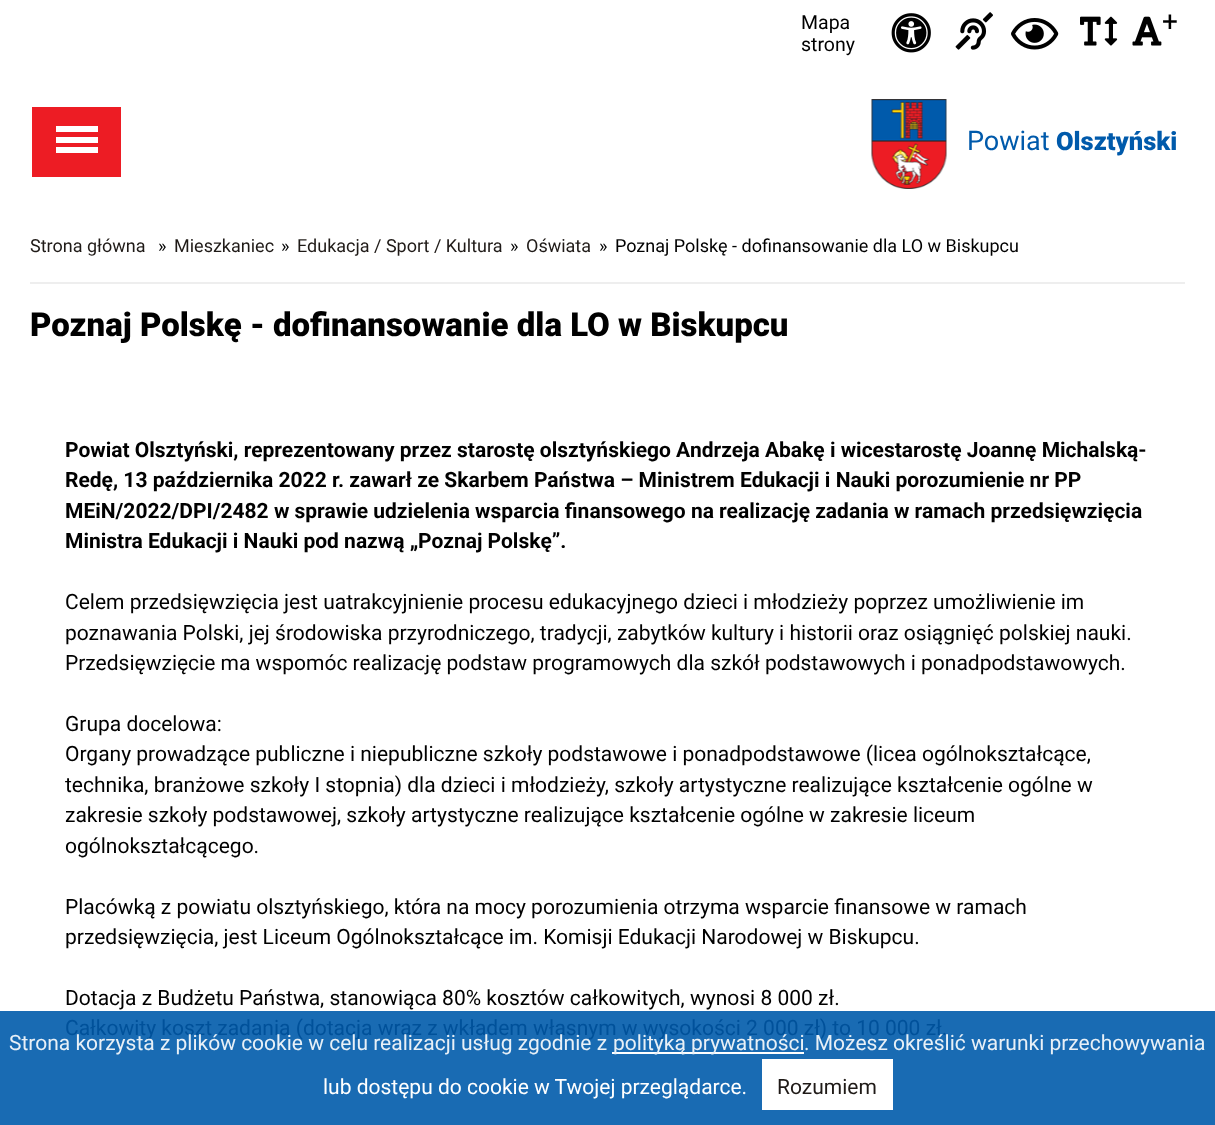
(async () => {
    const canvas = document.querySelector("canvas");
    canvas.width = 1215;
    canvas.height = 1125;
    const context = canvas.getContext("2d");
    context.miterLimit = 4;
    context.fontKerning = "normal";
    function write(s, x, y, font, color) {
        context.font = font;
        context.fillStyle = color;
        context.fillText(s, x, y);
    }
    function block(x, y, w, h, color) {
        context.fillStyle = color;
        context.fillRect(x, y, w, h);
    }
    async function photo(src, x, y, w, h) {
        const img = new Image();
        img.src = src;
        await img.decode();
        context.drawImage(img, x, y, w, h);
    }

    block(0, 0, 1215, 1125, "rgb(255, 255, 255)");
    block(0, 1011, 1215, 114, "rgb(25, 107, 179)");
    block(32, 107, 89, 70, "rgb(237, 28, 36)");
    block(56, 126, 42, 6, "rgb(255, 255, 255)");
    block(56, 137, 42, 6, "rgb(255, 255, 255)");
    block(56, 147, 42, 6, "rgb(255, 255, 255)");
    write("Mapa", 801, 29, "19.5px Roboto", "rgb(0, 0, 0)");
    write("strony", 801, 51, "19.5px Roboto", "rgb(0, 0, 0)");
    await photo("media/1.png", 891, 13, 40, 40);
    await photo("media/2.png", 955, 12, 38, 38);
    await photo("media/3.png", 1011, 18, 48, 32);
    await photo("media/4.png", 1080, 16, 38, 30);
    await photo("media/5.png", 1132, 16, 30, 30);
    write("+", 1162, 31, "28px Roboto", "rgb(0, 0, 0)");
    await photo("media/6.png", 871, 99, 76, 90);
    write("Powiat", 967, 150, "27px Roboto", "rgb(0, 90, 171)");
    write("Olsztyński", 1056, 150, "900 25.5px Roboto", "rgb(0, 90, 171)");
    block(30, 282, 1155, 2, "rgb(238, 238, 238)");
    write("Strona główna", 30, 252, "18px Roboto", "rgb(31, 26, 23)");
    write("»", 158, 252, "18px Roboto", "rgb(0, 0, 0)");
    write("Mieszkaniec", 174, 252, "18px Roboto", "rgb(31, 26, 23)");
    write("»", 281, 252, "18px Roboto", "rgb(0, 0, 0)");
    write("Edukacja / Sport / Kultura", 297, 252, "18px Roboto", "rgb(31, 26, 23)");
    write("»", 510, 252, "18px Roboto", "rgb(0, 0, 0)");
    write("Oświata", 526, 252, "18px Roboto", "rgb(31, 26, 23)");
    write("»", 599, 252, "18px Roboto", "rgb(0, 0, 0)");
    write("Poznaj Polskę - dofinansowanie dla LO w Biskupcu", 615, 252, "18px Roboto", "rgb(0, 0, 0)");
    write("Poznaj Polskę - dofinansowanie dla LO w Biskupcu", 30, 336, "900 33px Roboto", "rgb(0, 0, 0)");
    write("Powiat Olsztyński, reprezentowany przez starostę olsztyńskiego Andrzeja Abakę i wicestarostę Joannę Michalską-", 65, 457, "bold 21px Roboto", "rgb(0, 0, 0)");
    write("Redę, 13 października 2022 r. zawarł ze Skarbem Państwa – Ministrem Edukacji i Nauki porozumienie nr PP", 65, 487, "bold 21px Roboto", "rgb(0, 0, 0)");
    write("MEiN/2022/DPI/2482 w sprawie udzielenia wsparcia finansowego na realizację zadania w ramach przedsięwzięcia", 65, 518, "bold 21px Roboto", "rgb(0, 0, 0)");
    write("Ministra Edukacji i Nauki pod nazwą „Poznaj Polskę”.", 65, 548, "bold 21px Roboto", "rgb(0, 0, 0)");
    write("Celem przedsięwzięcia jest uatrakcyjnienie procesu edukacyjnego dzieci i młodzieży poprzez umożliwienie im", 65, 609, "21px Roboto", "rgb(0, 0, 0)");
    write("poznawania Polski, jej środowiska przyrodniczego, tradycji, zabytków kultury i historii oraz osiągnięć polskiej nauki.", 65, 640, "21px Roboto", "rgb(0, 0, 0)");
    write("Przedsięwzięcie ma wspomóc realizację podstaw programowych dla szkół podstawowych i ponadpodstawowych.", 65, 670, "21px Roboto", "rgb(0, 0, 0)");
    write("Grupa docelowa:", 65, 731, "21px Roboto", "rgb(0, 0, 0)");
    write("Organy prowadzące publiczne i niepubliczne szkoły podstawowe i ponadpodstawowe (licea ogólnokształcące,", 65, 761, "21px Roboto", "rgb(0, 0, 0)");
    write("technika, branżowe szkoły I stopnia) dla dzieci i młodzieży, szkoły artystyczne realizujące kształcenie ogólne w", 65, 792, "21px Roboto", "rgb(0, 0, 0)");
    write("zakresie szkoły podstawowej, szkoły artystyczne realizujące kształcenie ogólne w zakresie liceum", 65, 822, "21px Roboto", "rgb(0, 0, 0)");
    write("ogólnokształcącego.", 65, 853, "21px Roboto", "rgb(0, 0, 0)");
    write("Placówką z powiatu olsztyńskiego, która na mocy porozumienia otrzyma wsparcie finansowe w ramach", 65, 914, "21px Roboto", "rgb(0, 0, 0)");
    write("przedsięwzięcia, jest Liceum Ogólnokształcące im. Komisji Edukacji Narodowej w Biskupcu.", 65, 944, "21px Roboto", "rgb(0, 0, 0)");
    write("Dotacja z Budżetu Państwa, stanowiąca 80% kosztów całkowitych, wynosi 8 000 zł.", 65, 1005, "21px Roboto", "rgb(0, 0, 0)");
    write("Całkowity koszt zadania (dotacja wraz z wkładem własnym w wysokości 2 000 zł) to 10 000 zł.", 65, 1035, "21px Roboto", "rgb(0, 81, 154)");
    write("Strona korzysta z plików cookie w celu realizacji usług zgodnie z", 9, 1050, "21px Roboto", "rgb(232, 240, 247)");
    block(612, 1052, 192, 2, "rgb(255, 255, 255)");
    write("polityką prywatności", 613, 1050, "21px Roboto", "rgb(232, 240, 247)");
    write(". Możesz określić warunki przechowywania", 804, 1050, "21px Roboto", "rgb(232, 240, 247)");
    write("lub dostępu do cookie w Twojej przeglądarce.", 323, 1094, "21px Roboto", "rgb(255, 255, 255)");
    block(762, 1059, 131, 51, "rgb(255, 255, 255)");
    write("Rozumiem", 777, 1094, "21px Roboto", "rgb(31, 26, 23)");
})();
